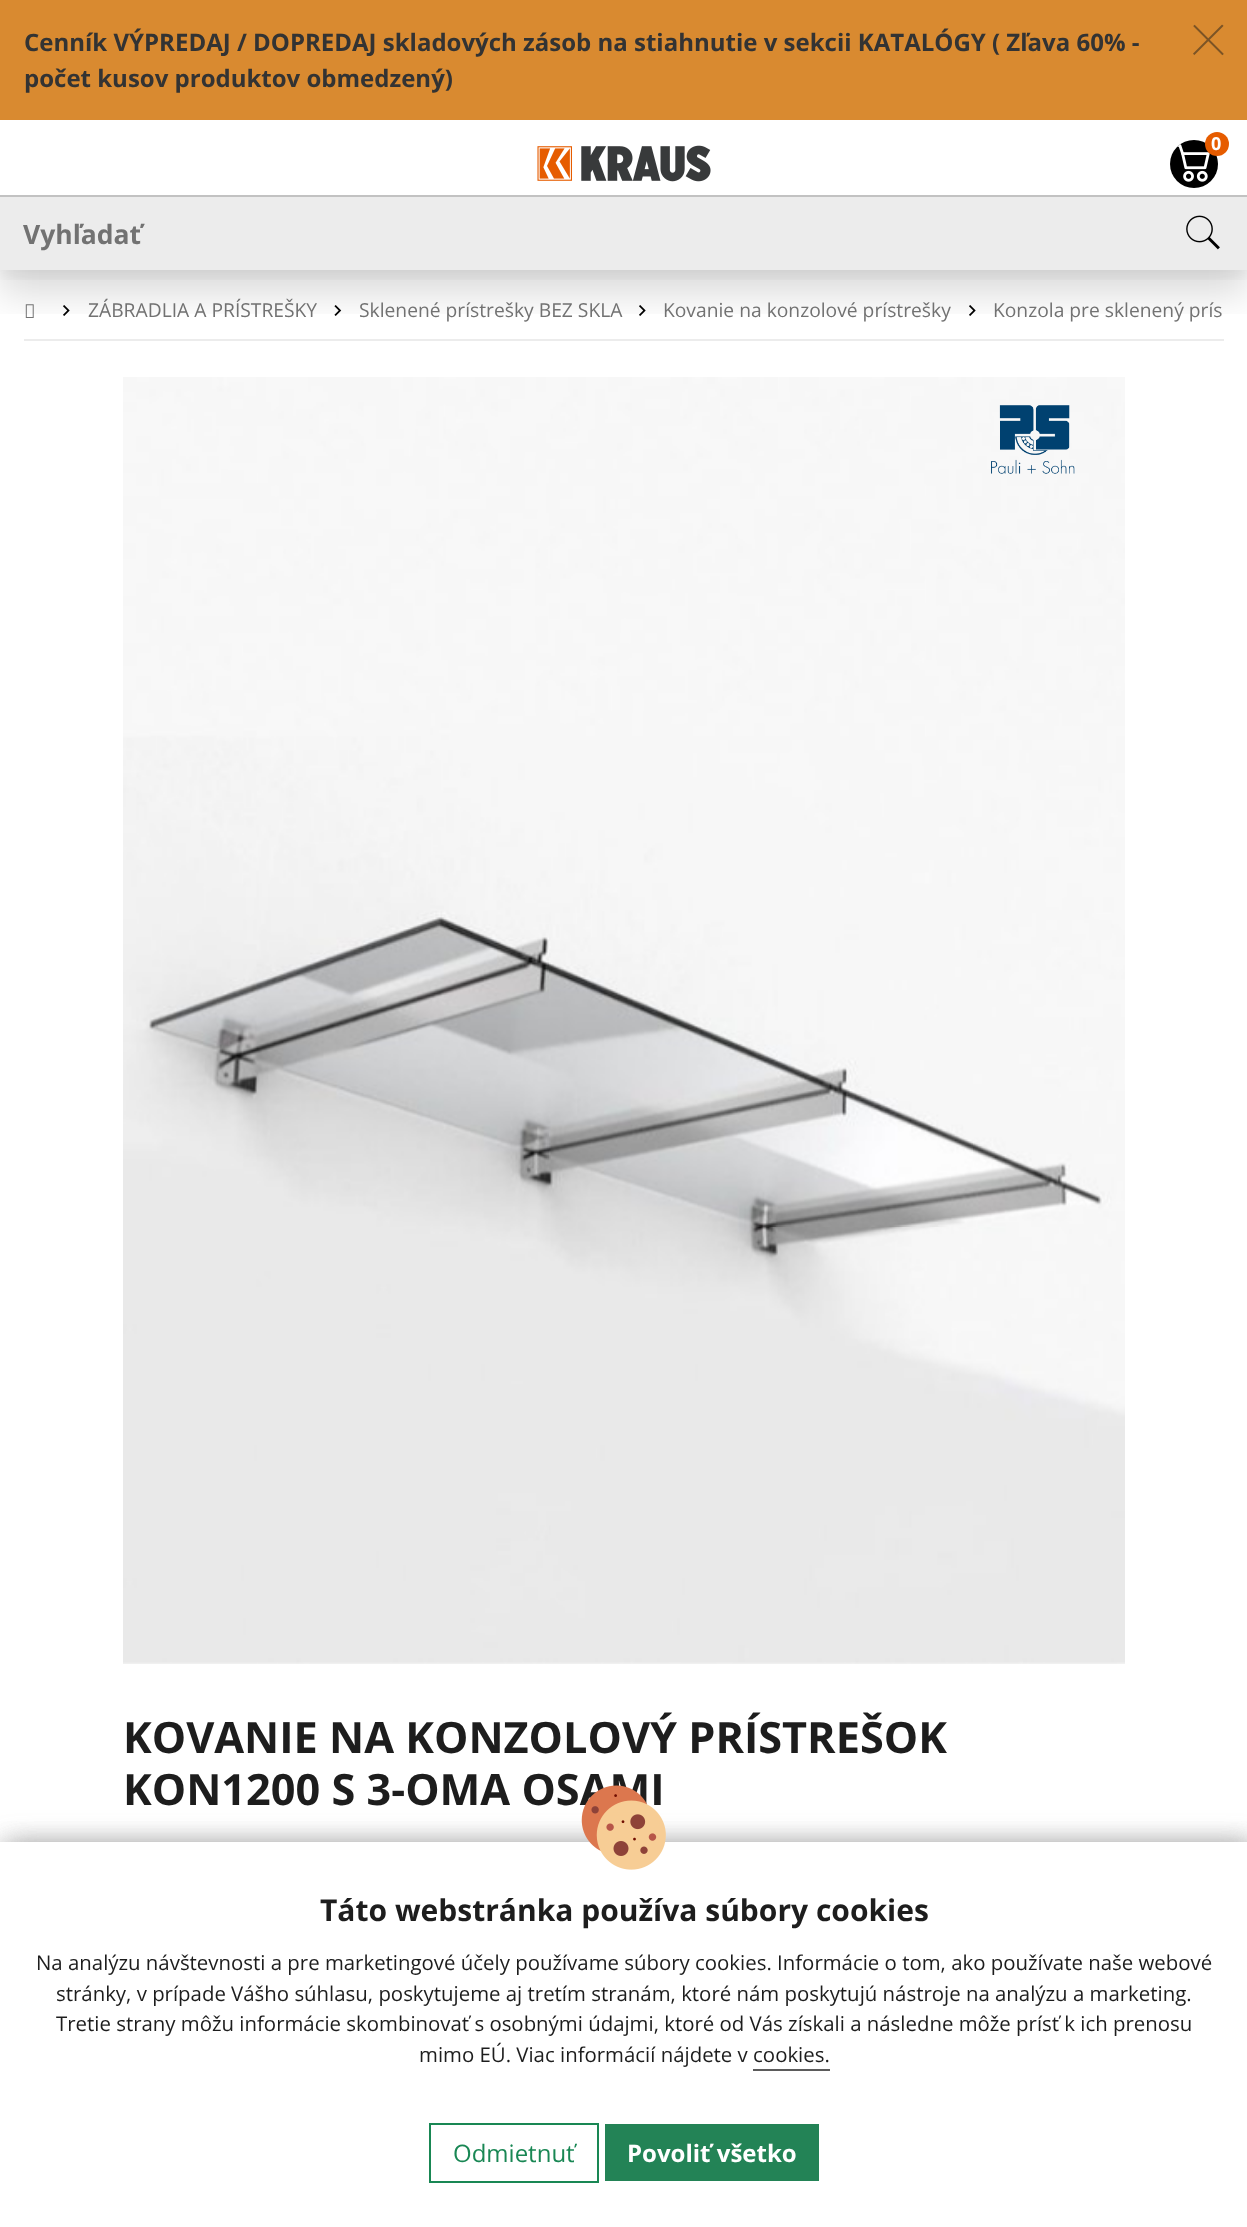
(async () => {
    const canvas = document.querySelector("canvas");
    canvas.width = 1247;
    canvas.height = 2227;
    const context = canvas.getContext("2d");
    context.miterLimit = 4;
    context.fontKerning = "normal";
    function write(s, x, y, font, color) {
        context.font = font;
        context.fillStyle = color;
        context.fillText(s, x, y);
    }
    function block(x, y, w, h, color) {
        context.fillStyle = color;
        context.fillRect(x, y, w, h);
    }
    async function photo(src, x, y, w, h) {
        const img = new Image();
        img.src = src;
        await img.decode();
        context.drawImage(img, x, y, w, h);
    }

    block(0, 0, 1247, 2227, "rgb(255, 255, 255)");
    context.save();
    context.beginPath();
    context.rect(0, 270, 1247, 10);
    context.clip();
    context.fillStyle = "rgba(0, 0, 0, 0.05)";
    context.filter = "blur(7.5px)";
    context.beginPath();
    context.rect(0, 8, 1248, 270);
    context.fill();
    context.filter = "none";
    context.restore();
    block(24, 339, 1200, 2, "rgb(236, 236, 236)");
    await photo("media/5.png", 25, 304, 9, 14);
    await photo("media/6.png", 63, 305, 7, 11);
    await photo("media/7.png", 334, 305, 8, 11);
    await photo("media/6.png", 639, 305, 7, 11);
    await photo("media/6.png", 969, 305, 7, 11);
    context.save();
    context.beginPath();
    context.rect(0, 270, 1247, 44);
    context.clip();
    context.fillStyle = "rgba(0, 0, 0, 0.15)";
    context.filter = "blur(19px)";
    context.beginPath();
    context.rect(0, 23, 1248, 270);
    context.fill();
    context.filter = "none";
    context.restore();
    block(0, 0, 1247, 120, "rgb(217, 138, 48)");
    write("Cenník VÝPREDAJ / DOPREDAJ skladových zásob na stiahnutie v sekcii KATALÓGY ( Zľava 60% -", 24, 51, "bold 24px Open Sans", "rgb(51, 51, 51)");
    await photo("media/1.png", 1193, 24, 31, 32);
    write("počet kusov produktov obmedzený)", 24, 87, "bold 24px Open Sans", "rgb(51, 51, 51)");
    context.fillStyle = "rgb(0, 0, 0)";
    context.beginPath();
    context.arc(1194, 164, 24, 0, Math.PI * 2);
    context.fill();
    await photo("media/2.png", 1177, 144, 33, 38);
    context.fillStyle = "rgb(230, 92, 0)";
    context.beginPath();
    context.arc(1217, 144, 12, 0, Math.PI * 2);
    context.fill();
    write("0", 1211, 150, "bold 18px Open Sans", "rgb(255, 255, 255)");
    await photo("media/3.png", 537, 145, 174, 37);
    block(0, 197, 1247, 73, "rgb(236, 236, 236)");
    block(0, 195, 1247, 2, "rgb(194, 194, 194)");
    write("Vyhľadať", 23, 244, "bold 26.5px Open Sans", "rgb(114, 114, 114)");
    await photo("media/4.png", 1186, 215, 34, 35);
    write("ZÁBRADLIA A PRÍSTREŠKY", 88, 317, "19.25px Open Sans", "rgb(114, 114, 114)");
    write("Sklenené prístrešky BEZ SKLA", 359, 317, "19.25px Open Sans", "rgb(114, 114, 114)");
    write("Kovanie na konzolové prístrešky", 663, 317, "19.25px Open Sans", "rgb(114, 114, 114)");
    write("Konzola pre sklenený prís", 993, 317, "19.25px Open Sans", "rgb(114, 114, 114)");
    await photo("media/8.png", 123, 377, 1002, 1287);
    await photo("media/9.png", 991, 405, 84, 69);
    write("KOVANIE NA KONZOLOVÝ PRÍSTREŠOK", 123, 1753, "bold 43.25px Open Sans", "rgb(29, 29, 29)");
    write("KON1200 S 3-OMA OSAMI", 123, 1805, "bold 43.25px Open Sans", "rgb(29, 29, 29)");
    context.fillStyle = "rgba(105, 105, 105, 0.5)";
    context.filter = "blur(15px)";
    context.beginPath();
    context.rect(5, 1847, 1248, 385);
    context.fill();
    context.filter = "none";
    block(0, 1842, 1247, 385, "rgb(255, 255, 255)");
    context.save();
    context.beginPath();
    context.rect(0, 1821, 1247, 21);
    context.clip();
    context.fillStyle = "rgba(105, 105, 105, 0.5)";
    context.filter = "blur(15px)";
    context.beginPath();
    context.rect(5, 1847, 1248, 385);
    context.fill();
    context.filter = "none";
    context.restore();
    await photo("media/10.png", 581, 1785, 85, 85);
    write("Táto webstránka používa súbory cookies", 320, 1921, "bold 30px Open Sans", "rgb(29, 29, 29)");
    write("Na analýzu návštevnosti a pre marketingové účely používame súbory cookies. Informácie o tom, ako používate naše webové", 36, 1970, "20.4px Open Sans", "rgb(29, 29, 29)");
    write("stránky, v prípade Vášho súhlasu, poskytujeme aj tretím stranám, ktoré nám poskytujú nástroje na analýzu a marketing.", 56, 2001, "20.4px Open Sans", "rgb(29, 29, 29)");
    write("Tretie strany môžu informácie skombinovať s osobnými údajmi, ktoré od Vás získali a následne môže prísť k ich prenosu", 56, 2031, "20.4px Open Sans", "rgb(29, 29, 29)");
    write("mimo EÚ. Viac informácií nájdete v cookies.", 419, 2062, "20.4px Open Sans", "rgb(29, 29, 29)");
    block(753, 2069, 77, 2, "rgb(91, 91, 91)");
    context.strokeStyle = "rgb(25, 135, 84)";
    context.lineWidth = 2;
    context.strokeRect(430, 2124, 168, 58);
    write("Odmietnuť", 453, 2162, "24px Open Sans", "rgb(25, 135, 84)");
    block(605, 2124, 214, 57, "rgb(35, 131, 86)");
    write("Povoliť všetko", 627, 2162, "bold 24px Open Sans", "rgb(255, 255, 255)");
})();
